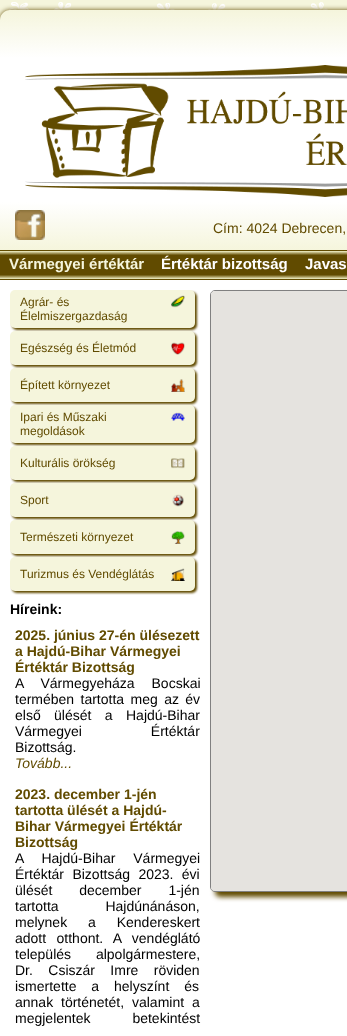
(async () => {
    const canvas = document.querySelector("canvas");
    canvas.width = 347;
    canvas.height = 1036;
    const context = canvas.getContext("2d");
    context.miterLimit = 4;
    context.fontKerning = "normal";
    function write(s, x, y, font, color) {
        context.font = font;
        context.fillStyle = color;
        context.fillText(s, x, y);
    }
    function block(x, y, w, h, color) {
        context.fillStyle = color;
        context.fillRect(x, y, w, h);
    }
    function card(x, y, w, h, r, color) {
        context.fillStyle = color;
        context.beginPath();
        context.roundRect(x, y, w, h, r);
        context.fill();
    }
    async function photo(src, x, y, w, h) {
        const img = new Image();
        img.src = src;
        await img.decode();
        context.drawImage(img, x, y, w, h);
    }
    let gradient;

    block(0, 0, 347, 1036, "rgb(245, 245, 220)");
    await photo("media/1.png", 8, 2, 320, 9);
    context.fillStyle = "rgb(97, 75, 0)";
    context.filter = "blur(2.5px)";
    context.beginPath();
    context.roundRect(0, 10, 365, 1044, 10);
    context.fill();
    context.filter = "none";
    gradient = context.createLinearGradient(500, 10, 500, 250);
    gradient.addColorStop(0, "rgb(245, 245, 220)");
    gradient.addColorStop(0.2, "rgb(255, 255, 255)");
    gradient.addColorStop(0.8, "rgb(255, 255, 255)");
    gradient.addColorStop(1, "rgb(245, 245, 220)");
    context.fillStyle = gradient;
    context.beginPath();
    context.moveTo(10, 10);
    context.lineTo(347, 10);
    context.bezierCurveTo(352.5, 10, 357, 14.5, 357, 20);
    context.lineTo(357, 250);
    context.lineTo(0, 250);
    context.lineTo(0, 20);
    context.bezierCurveTo(0, 14.5, 4.5, 10, 10, 10);
    context.closePath();
    context.fill();
    block(0, 250, 6, 1, "rgb(97, 75, 0)");
    await photo("media/2.png", 25, 65, 322, 132);
    await photo("media/3.png", 15, 210, 30, 30);
    write("Cím: 4024 Debrecen,", 213, 233, "14px Liberation Sans", "rgb(97, 75, 0)");
    gradient = context.createLinearGradient(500, 251, 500, 279);
    gradient.addColorStop(0, "rgb(246, 246, 204)");
    gradient.addColorStop(0.15, "rgb(97, 75, 0)");
    gradient.addColorStop(0.85, "rgb(97, 75, 0)");
    gradient.addColorStop(1, "rgb(246, 246, 204)");
    context.fillStyle = gradient;
    context.fillRect(0, 251, 347, 28);
    block(0, 279, 6, 1, "rgb(97, 75, 0)");
    write("Vármegyei értéktár", 9, 269, "bold 15px Liberation Sans", "rgb(245, 245, 220)");
    write("Értéktár bizottság", 161, 269, "bold 15px Liberation Sans", "rgb(255, 255, 255)");
    write("Javas", 305, 269, "bold 15px Liberation Sans", "rgb(255, 255, 255)");
    block(0, 280, 347, 756, "rgb(255, 255, 255)");
    context.fillStyle = "rgb(97, 75, 0)";
    context.filter = "blur(1px)";
    context.beginPath();
    context.roundRect(12, 292, 185, 38, 5);
    context.fill();
    context.filter = "none";
    card(10, 290, 185, 38, 5, "rgb(245, 245, 220)");
    write("Agrár- és", 20, 306, "12px Liberation Sans", "rgb(97, 75, 0)");
    write("Élelmiszergazdaság", 20, 320, "12px Liberation Sans", "rgb(97, 75, 0)");
    await photo("media/4.png", 171, 295, 14, 13);
    context.filter = "blur(1px)";
    context.beginPath();
    context.roundRect(12, 333, 185, 34, 5);
    context.fill();
    context.filter = "none";
    card(10, 331, 185, 34, 5, "rgb(245, 245, 220)");
    write("Egészség és Életmód", 20, 352, "12px Liberation Sans", "rgb(97, 75, 0)");
    await photo("media/5.png", 171, 342, 14, 13);
    context.filter = "blur(1px)";
    context.beginPath();
    context.roundRect(12, 370, 185, 34, 5);
    context.fill();
    context.filter = "none";
    card(10, 368, 185, 34, 5, "rgb(245, 245, 220)");
    write("Épített környezet", 20, 389, "12px Liberation Sans", "rgb(97, 75, 0)");
    await photo("media/6.png", 171, 379, 14, 13);
    context.filter = "blur(1px)";
    context.beginPath();
    context.roundRect(12, 407, 185, 38, 5);
    context.fill();
    context.filter = "none";
    card(10, 405, 185, 38, 5, "rgb(245, 245, 220)");
    write("Ipari és Műszaki", 20, 421, "12px Liberation Sans", "rgb(97, 75, 0)");
    write("megoldások", 20, 435, "12px Liberation Sans", "rgb(97, 75, 0)");
    await photo("media/7.png", 171, 412, 14, 9);
    context.filter = "blur(1px)";
    context.beginPath();
    context.roundRect(12, 448, 185, 34, 5);
    context.fill();
    context.filter = "none";
    card(10, 446, 185, 34, 5, "rgb(245, 245, 220)");
    write("Kulturális örökség", 20, 467, "12px Liberation Sans", "rgb(97, 75, 0)");
    await photo("media/8.png", 171, 458, 14, 11);
    context.filter = "blur(1px)";
    context.beginPath();
    context.roundRect(12, 485, 185, 34, 5);
    context.fill();
    context.filter = "none";
    card(10, 483, 185, 34, 5, "rgb(245, 245, 220)");
    write("Sport", 20, 504, "12px Liberation Sans", "rgb(97, 75, 0)");
    await photo("media/9.png", 172, 494, 12, 13);
    context.filter = "blur(1px)";
    context.beginPath();
    context.roundRect(12, 522, 185, 34, 5);
    context.fill();
    context.filter = "none";
    card(10, 520, 185, 34, 5, "rgb(245, 245, 220)");
    write("Természeti környezet", 20, 541, "12px Liberation Sans", "rgb(97, 75, 0)");
    await photo("media/10.png", 171, 531, 14, 13);
    context.filter = "blur(1px)";
    context.beginPath();
    context.roundRect(12, 559, 185, 34, 5);
    context.fill();
    context.filter = "none";
    card(10, 557, 185, 34, 5, "rgb(245, 245, 220)");
    write("Turizmus és Vendéglátás", 20, 578, "12px Liberation Sans", "rgb(97, 75, 0)");
    await photo("media/11.png", 171, 568, 14, 13);
    write("Híreink:", 10, 614, "bold 14px Liberation Sans", "rgb(0, 0, 0)");
    write("2025. június 27-én ülésezett", 15, 640, "bold 14px Liberation Sans", "rgb(97, 75, 0)");
    write("a Hajdú-Bihar Vármegyei", 15, 656, "bold 14px Liberation Sans", "rgb(97, 75, 0)");
    write("Értéktár Bizottság", 15, 672, "bold 14px Liberation Sans", "rgb(97, 75, 0)");
    context.wordSpacing = "13px";
    write("A Vármegyeháza Bocskai", 15, 688, "14px Liberation Sans", "rgb(0, 0, 0)");
    context.wordSpacing = "2.5px";
    write("termében tartotta meg az év", 15, 704, "14px Liberation Sans", "rgb(0, 0, 0)");
    context.wordSpacing = "9.5px";
    write("első ülését a Hajdú-Bihar", 15, 720, "14px Liberation Sans", "rgb(0, 0, 0)");
    context.wordSpacing = "65px";
    write("Vármegyei Értéktár", 15, 736, "14px Liberation Sans", "rgb(0, 0, 0)");
    context.wordSpacing = "0px";
    write("Bizottság.", 15, 752, "14px Liberation Sans", "rgb(0, 0, 0)");
    write("Tovább...", 15, 768, "italic 14px Liberation Sans", "rgb(97, 75, 0)");
    write("2023. december 1-jén", 15, 799, "bold 14px Liberation Sans", "rgb(97, 75, 0)");
    write("tartotta ülését a Hajdú-", 15, 815, "bold 14px Liberation Sans", "rgb(97, 75, 0)");
    write("Bihar Vármegyei Értéktár", 15, 831, "bold 14px Liberation Sans", "rgb(97, 75, 0)");
    write("Bizottság", 15, 847, "bold 14px Liberation Sans", "rgb(97, 75, 0)");
    context.wordSpacing = "14px";
    write("A Hajdú-Bihar Vármegyei", 15, 863, "14px Liberation Sans", "rgb(0, 0, 0)");
    context.wordSpacing = "4.5px";
    write("Értéktár Bizottság 2023. évi", 15, 879, "14px Liberation Sans", "rgb(0, 0, 0)");
    context.wordSpacing = "23px";
    write("ülését december 1-jén", 15, 895, "14px Liberation Sans", "rgb(0, 0, 0)");
    context.wordSpacing = "43px";
    write("tartotta Hajdúnánáson,", 15, 911, "14px Liberation Sans", "rgb(0, 0, 0)");
    context.wordSpacing = "17px";
    write("melynek a Kendereskert", 15, 927, "14px Liberation Sans", "rgb(0, 0, 0)");
    context.wordSpacing = "6.5px";
    write("adott otthont. A vendéglátó", 15, 943, "14px Liberation Sans", "rgb(0, 0, 0)");
    context.wordSpacing = "21px";
    write("település alpolgármestere,", 15, 959, "14px Liberation Sans", "rgb(0, 0, 0)");
    context.wordSpacing = "11.5px";
    write("Dr. Csiszár Imre röviden", 15, 975, "14px Liberation Sans", "rgb(0, 0, 0)");
    context.wordSpacing = "11px";
    write("ismertette a helyszínt és", 15, 991, "14px Liberation Sans", "rgb(0, 0, 0)");
    context.wordSpacing = "4px";
    write("annak történetét, valamint a", 15, 1007, "14px Liberation Sans", "rgb(0, 0, 0)");
    context.wordSpacing = "38px";
    write("megjelentek betekintést", 15, 1023, "14px Liberation Sans", "rgb(0, 0, 0)");
    context.fillStyle = "rgb(97, 75, 0)";
    context.filter = "blur(2.5px)";
    context.beginPath();
    context.roundRect(215, 295, 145, 602, 5);
    context.fill();
    context.filter = "none";
    context.beginPath();
    context.roundRect(210.5, 290.5, 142, 601, 4.5);
    context.strokeStyle = "rgb(128, 128, 128)";
    context.stroke();
    card(211, 291, 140, 600, 4, "rgb(229, 227, 223)");
})();
